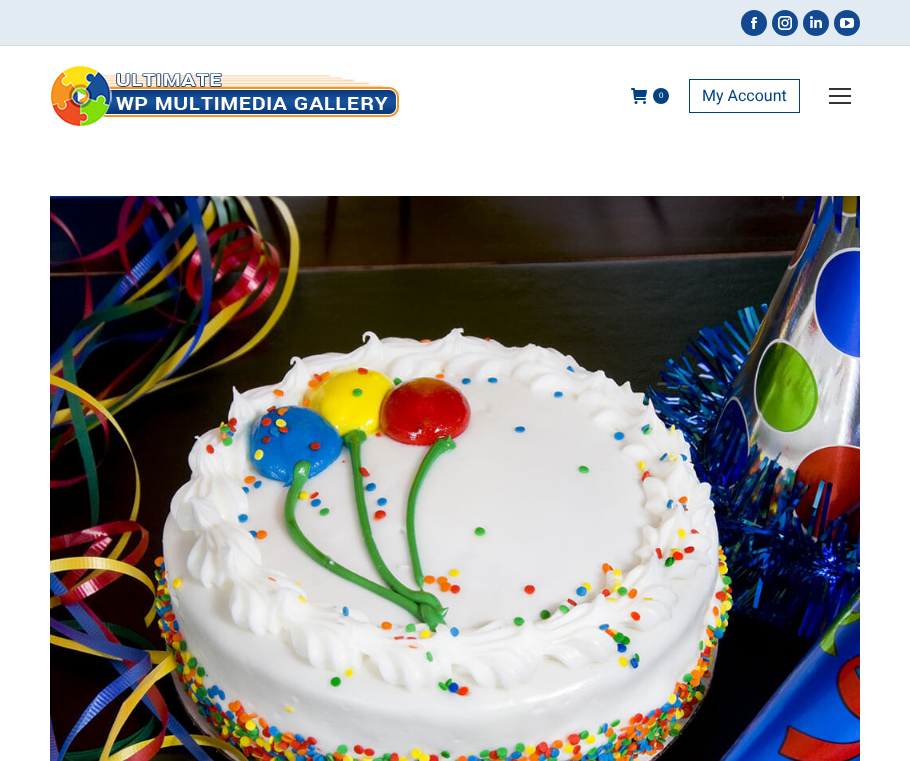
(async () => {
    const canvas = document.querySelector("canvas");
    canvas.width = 910;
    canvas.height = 761;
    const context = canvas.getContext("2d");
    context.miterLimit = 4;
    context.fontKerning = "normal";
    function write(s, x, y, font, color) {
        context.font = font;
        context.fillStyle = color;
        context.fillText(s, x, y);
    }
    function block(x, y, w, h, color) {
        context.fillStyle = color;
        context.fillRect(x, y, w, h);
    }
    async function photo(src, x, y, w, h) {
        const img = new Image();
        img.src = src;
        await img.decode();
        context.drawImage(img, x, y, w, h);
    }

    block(0, 0, 910, 761, "rgb(255, 255, 255)");
    block(0, 0, 910, 45, "rgb(227, 235, 242)");
    context.fillStyle = "rgb(18, 73, 144)";
    context.beginPath();
    context.arc(754, 23, 13, 0, Math.PI * 2);
    context.fill();
    await photo("media/1.png", 751, 17, 6, 12);
    context.beginPath();
    context.arc(785, 23, 13, 0, Math.PI * 2);
    context.fill();
    await photo("media/2.png", 778, 16, 14, 14);
    context.beginPath();
    context.arc(816, 23, 13, 0, Math.PI * 2);
    context.fill();
    await photo("media/3.png", 810, 16, 12, 12);
    context.beginPath();
    context.arc(847, 23, 13, 0, Math.PI * 2);
    context.fill();
    await photo("media/4.png", 840, 18, 14, 10);
    block(0, 45, 910, 1, "rgb(208, 215, 221)");
    await photo("media/5.png", 50, 65, 349, 62);
    await photo("media/6.png", 631, 88, 16, 16);
    context.fillStyle = "rgb(1, 65, 131)";
    context.beginPath();
    context.arc(661, 96, 8, 0, Math.PI * 2);
    context.fill();
    write("0", 659, 98, "8px Liberation Sans", "rgb(255, 255, 255)");
    context.strokeStyle = "rgb(1, 65, 131)";
    context.strokeRect(689.5, 79.5, 110, 33);
    write("My Account", 702, 101, "16px Roboto", "rgb(1, 65, 131)");
    block(829, 88, 22, 2, "rgb(51, 51, 51)");
    block(829, 95, 22, 2, "rgb(51, 51, 51)");
    block(829, 102, 22, 2, "rgb(51, 51, 51)");
    await photo("media/7.png", 50, 196, 810, 565);
})();
